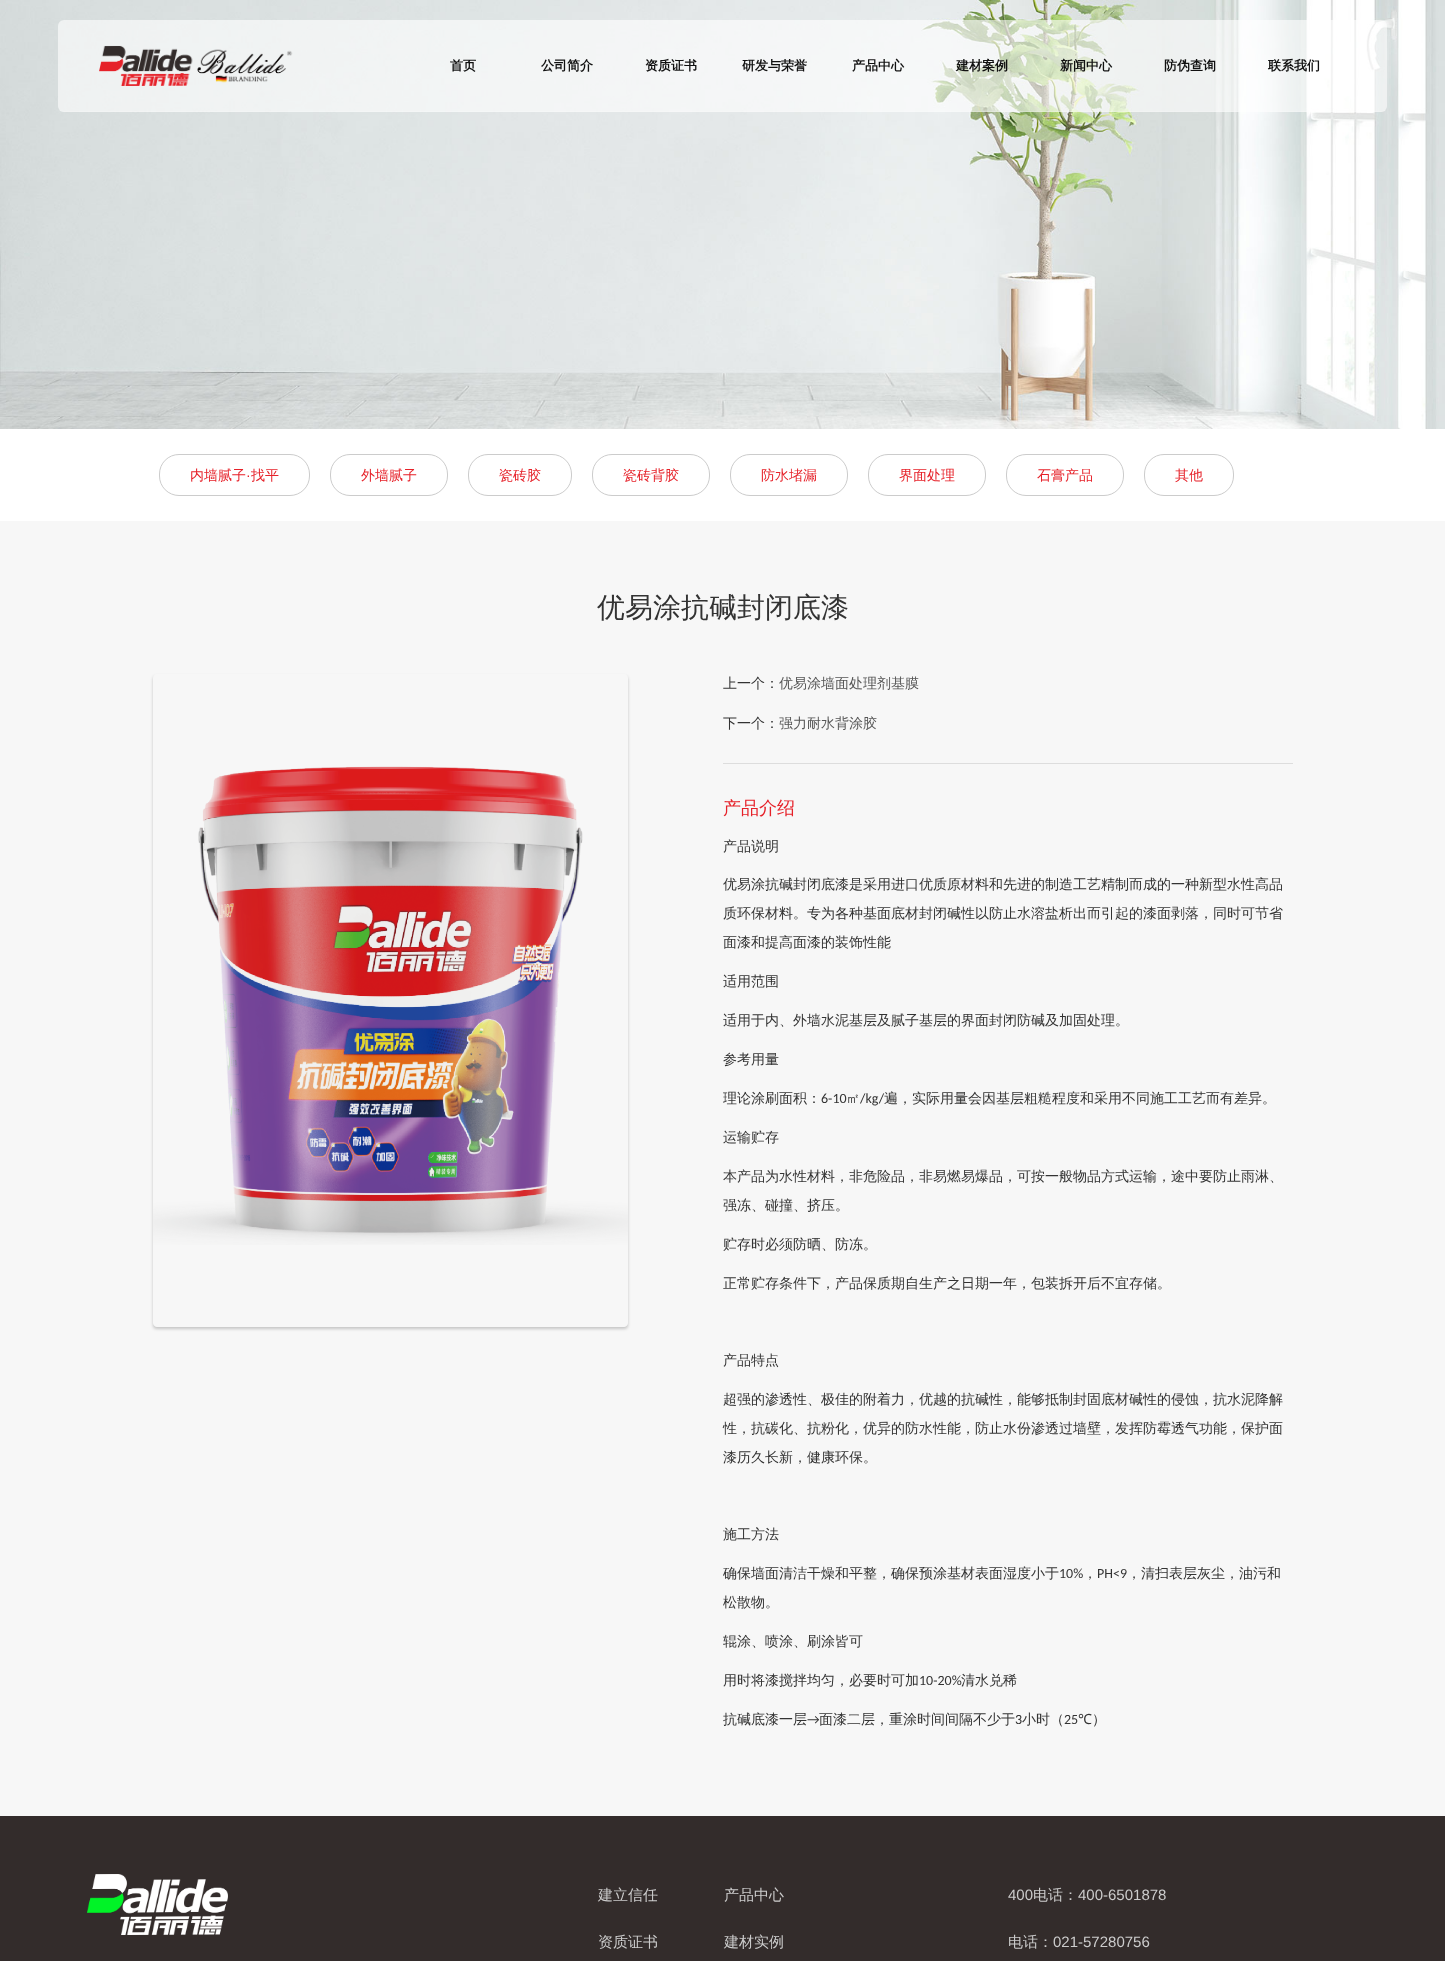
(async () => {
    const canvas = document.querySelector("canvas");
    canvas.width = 1445;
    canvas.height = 1961;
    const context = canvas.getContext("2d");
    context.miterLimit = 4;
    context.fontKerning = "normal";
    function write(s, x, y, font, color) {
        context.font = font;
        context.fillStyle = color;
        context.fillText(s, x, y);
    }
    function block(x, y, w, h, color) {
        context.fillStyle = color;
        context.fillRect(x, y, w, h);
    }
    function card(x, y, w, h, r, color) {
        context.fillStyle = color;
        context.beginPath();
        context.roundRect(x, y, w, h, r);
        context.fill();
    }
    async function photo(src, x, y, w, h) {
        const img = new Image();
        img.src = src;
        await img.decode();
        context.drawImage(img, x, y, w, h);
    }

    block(0, 0, 1445, 1961, "rgb(247, 247, 247)");
    await photo("media/1.png", 0, 0, 1445, 429);
    card(58, 20, 1329, 92, 6, "rgba(255, 255, 255, 0.6)");
    context.beginPath();
    context.moveTo(1385.5, 110.5);
    context.lineTo(1383, 111.5);
    context.lineTo(62, 111.5);
    context.lineTo(59.5, 110.5);
    context.strokeStyle = "rgba(255, 255, 255, 0.2)";
    context.stroke();
    await photo("media/2.png", 99, 45, 194, 41);
    write("首页", 450, 70, "bold 13px WenQuanYi Zen Hei", "rgb(17, 17, 17)");
    write("公司简介", 541, 70, "bold 13px WenQuanYi Zen Hei", "rgb(17, 17, 17)");
    write("资质证书", 645, 70, "bold 13px WenQuanYi Zen Hei", "rgb(17, 17, 17)");
    write("研发与荣誉", 742, 70, "bold 13px WenQuanYi Zen Hei", "rgb(17, 17, 17)");
    write("产品中心", 852, 70, "bold 13px WenQuanYi Zen Hei", "rgb(17, 17, 17)");
    write("建材案例", 956, 70, "bold 13px WenQuanYi Zen Hei", "rgb(17, 17, 17)");
    write("新闻中心", 1060, 70, "bold 13px WenQuanYi Zen Hei", "rgb(17, 17, 17)");
    write("防伪查询", 1164, 70, "bold 13px WenQuanYi Zen Hei", "rgb(17, 17, 17)");
    write("联系我们", 1268, 70, "bold 13px WenQuanYi Zen Hei", "rgb(17, 17, 17)");
    block(0, 429, 1445, 92, "rgb(255, 255, 255)");
    context.beginPath();
    context.roundRect(159.5, 454.5, 150, 41, 19.5);
    context.strokeStyle = "rgb(204, 204, 204)";
    context.stroke();
    write("内墙腻子", 190, 480, "500 14px WenQuanYi Zen Hei", "rgb(230, 33, 41)");
    write("·", 246, 480, "14px Liberation Sans", "rgb(230, 33, 41)");
    write("找平", 251, 480, "500 14px WenQuanYi Zen Hei", "rgb(230, 33, 41)");
    context.beginPath();
    context.roundRect(330.5, 454.5, 117, 41, 19.5);
    context.stroke();
    write("外墙腻子", 361, 480, "500 14px WenQuanYi Zen Hei", "rgb(230, 33, 41)");
    context.beginPath();
    context.roundRect(468.5, 454.5, 103, 41, 19.5);
    context.stroke();
    write("瓷砖胶", 499, 480, "500 14px WenQuanYi Zen Hei", "rgb(230, 33, 41)");
    context.beginPath();
    context.roundRect(592.5, 454.5, 117, 41, 19.5);
    context.stroke();
    write("瓷砖背胶", 623, 480, "500 14px WenQuanYi Zen Hei", "rgb(230, 33, 41)");
    context.beginPath();
    context.roundRect(730.5, 454.5, 117, 41, 19.5);
    context.stroke();
    write("防水堵漏", 761, 480, "500 14px WenQuanYi Zen Hei", "rgb(230, 33, 41)");
    context.beginPath();
    context.roundRect(868.5, 454.5, 117, 41, 19.5);
    context.stroke();
    write("界面处理", 899, 480, "500 14px WenQuanYi Zen Hei", "rgb(230, 33, 41)");
    context.beginPath();
    context.roundRect(1006.5, 454.5, 117, 41, 19.5);
    context.stroke();
    write("石膏产品", 1037, 480, "500 14px WenQuanYi Zen Hei", "rgb(230, 33, 41)");
    context.beginPath();
    context.roundRect(1144.5, 454.5, 89, 41, 19.5);
    context.stroke();
    write("其他", 1175, 480, "500 14px WenQuanYi Zen Hei", "rgb(230, 33, 41)");
    write("优易涂抗碱封闭底漆", 597, 617, "500 28px WenQuanYi Zen Hei", "rgb(51, 51, 51)");
    context.save();
    context.beginPath();
    context.moveTo(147, 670);
    context.lineTo(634, 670);
    context.lineTo(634, 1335);
    context.lineTo(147, 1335);
    context.closePath();
    context.moveTo(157, 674);
    context.lineTo(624, 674);
    context.bezierCurveTo(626, 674, 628, 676, 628, 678);
    context.lineTo(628, 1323);
    context.bezierCurveTo(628, 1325, 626, 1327, 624, 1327);
    context.lineTo(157, 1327);
    context.bezierCurveTo(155, 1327, 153, 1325, 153, 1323);
    context.lineTo(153, 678);
    context.bezierCurveTo(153, 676, 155, 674, 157, 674);
    context.closePath();
    context.clip("evenodd");
    context.fillStyle = "rgba(0, 0, 0, 0.2)";
    context.filter = "blur(1.5px)";
    context.beginPath();
    context.roundRect(153, 676, 475, 653, 4);
    context.fill();
    context.filter = "none";
    context.restore();
    await photo("media/3.png", 153, 766, 475, 479);
    write("上一个：", 723, 688, "500 14px WenQuanYi Zen Hei", "rgb(51, 51, 51)");
    write("优易涂墙面处理剂基膜", 779, 688, "500 14px WenQuanYi Zen Hei", "rgb(85, 85, 85)");
    write("下一个：", 723, 728, "500 14px WenQuanYi Zen Hei", "rgb(51, 51, 51)");
    write("强力耐水背涂胶", 779, 728, "500 14px WenQuanYi Zen Hei", "rgb(85, 85, 85)");
    block(723, 763, 570, 1, "rgb(221, 221, 221)");
    write("产品介绍", 723, 814, "500 18px WenQuanYi Zen Hei", "rgb(230, 33, 41)");
    write("产品说明", 723, 851, "500 14px WenQuanYi Zen Hei", "rgb(51, 51, 51)");
    write("优易涂抗碱封闭底漆是采用进口优质原材料和先进的制造工艺精制而成的一种新型水性高品", 723, 889, "500 14px WenQuanYi Zen Hei", "rgb(51, 51, 51)");
    write("质环保材料。专为各种基面底材封闭碱性以防止水溶盐析出而引起的漆面剥落，同时可节省", 723, 918, "500 14px WenQuanYi Zen Hei", "rgb(51, 51, 51)");
    write("面漆和提高面漆的装饰性能", 723, 947, "500 14px WenQuanYi Zen Hei", "rgb(51, 51, 51)");
    write("适用范围", 723, 986, "500 14px WenQuanYi Zen Hei", "rgb(51, 51, 51)");
    write("适用于内、外墙水泥基层及腻子基层的界面封闭防碱及加固处理。", 723, 1025, "500 14px WenQuanYi Zen Hei", "rgb(51, 51, 51)");
    write("参考用量", 723, 1064, "500 14px WenQuanYi Zen Hei", "rgb(51, 51, 51)");
    write("理论涂刷面积：", 723, 1103, "500 14px WenQuanYi Zen Hei", "rgb(51, 51, 51)");
    write("6-10", 821, 1103, "14px Carlito", "rgb(51, 51, 51)");
    write("㎡", 846, 1103, "500 14px WenQuanYi Zen Hei", "rgb(51, 51, 51)");
    write("/kg/", 860, 1103, "14px Carlito", "rgb(51, 51, 51)");
    write("遍，实际用量会因基层粗糙程度和采用不同施工工艺而有差异。", 884, 1103, "500 14px WenQuanYi Zen Hei", "rgb(51, 51, 51)");
    write("运输贮存", 723, 1142, "500 14px WenQuanYi Zen Hei", "rgb(51, 51, 51)");
    write("本产品为水性材料，非危险品，非易燃易爆品，可按一般物品方式运输，途中要防止雨淋、", 723, 1181, "500 14px WenQuanYi Zen Hei", "rgb(51, 51, 51)");
    write("强冻、碰撞、挤压。", 723, 1210, "500 14px WenQuanYi Zen Hei", "rgb(51, 51, 51)");
    write("贮存时必须防晒、防冻。", 723, 1249, "500 14px WenQuanYi Zen Hei", "rgb(51, 51, 51)");
    write("正常贮存条件下，产品保质期自生产之日期一年，包装拆开后不宜存储。", 723, 1288, "500 14px WenQuanYi Zen Hei", "rgb(51, 51, 51)");
    write("产品特点", 723, 1365, "500 14px WenQuanYi Zen Hei", "rgb(51, 51, 51)");
    write("超强的渗透性、极佳的附着力，优越的抗碱性，能够抵制封固底材碱性的侵蚀，抗水泥降解", 723, 1404, "500 14px WenQuanYi Zen Hei", "rgb(51, 51, 51)");
    write("性，抗碳化、抗粉化，优异的防水性能，防止水份渗透过墙壁，发挥防霉透气功能，保护面", 723, 1433, "500 14px WenQuanYi Zen Hei", "rgb(51, 51, 51)");
    write("漆历久长新，健康环保。", 723, 1462, "500 14px WenQuanYi Zen Hei", "rgb(51, 51, 51)");
    write("施工方法", 723, 1539, "500 14px WenQuanYi Zen Hei", "rgb(51, 51, 51)");
    write("确保墙面清洁干燥和平整，确保预涂基材表面湿度小于", 723, 1578, "500 14px WenQuanYi Zen Hei", "rgb(51, 51, 51)");
    write("10%", 1059, 1578, "14px Carlito", "rgb(51, 51, 51)");
    write("，", 1083, 1578, "500 14px WenQuanYi Zen Hei", "rgb(51, 51, 51)");
    write("PH<9", 1097, 1578, "14px Carlito", "rgb(51, 51, 51)");
    write("，清扫表层灰尘，油污和", 1127, 1578, "500 14px WenQuanYi Zen Hei", "rgb(51, 51, 51)");
    write("松散物。", 723, 1607, "500 14px WenQuanYi Zen Hei", "rgb(51, 51, 51)");
    write("辊涂、喷涂、刷涂皆可", 723, 1646, "500 14px WenQuanYi Zen Hei", "rgb(51, 51, 51)");
    write("用时将漆搅拌均匀，必要时可加", 723, 1685, "500 14px WenQuanYi Zen Hei", "rgb(51, 51, 51)");
    write("10-20%", 919, 1685, "14px Carlito", "rgb(51, 51, 51)");
    write("清水兑稀", 961, 1685, "500 14px WenQuanYi Zen Hei", "rgb(51, 51, 51)");
    write("抗碱底漆一层", 723, 1724, "500 14px WenQuanYi Zen Hei", "rgb(51, 51, 51)");
    write("→", 807, 1724, "14px Carlito", "rgb(51, 51, 51)");
    write("面漆二层，重涂时间间隔不少于", 819, 1724, "500 14px WenQuanYi Zen Hei", "rgb(51, 51, 51)");
    write("3", 1015, 1724, "14px Carlito", "rgb(51, 51, 51)");
    write("小时（", 1022, 1724, "500 14px WenQuanYi Zen Hei", "rgb(51, 51, 51)");
    write("25", 1064, 1724, "14px Carlito", "rgb(51, 51, 51)");
    write("℃", 1078, 1724, "14px Noto Sans", "rgb(51, 51, 51)");
    write("）", 1092, 1724, "500 14px WenQuanYi Zen Hei", "rgb(51, 51, 51)");
    block(0, 1816, 1445, 145, "rgb(51, 44, 43)");
    await photo("media/4.png", 87, 1874, 141, 61);
    write("建立信任", 598, 1900, "500 15px WenQuanYi Zen Hei", "rgb(204, 204, 204)");
    write("产品中心", 724, 1900, "500 15px WenQuanYi Zen Hei", "rgb(204, 204, 204)");
    write("资质证书", 598, 1947, "500 15px WenQuanYi Zen Hei", "rgb(204, 204, 204)");
    write("建材实例", 724, 1947, "500 15px WenQuanYi Zen Hei", "rgb(204, 204, 204)");
    write("400", 1008, 1900, "15px Liberation Sans", "rgb(204, 204, 204)");
    write("电话：", 1033, 1900, "500 15px WenQuanYi Zen Hei", "rgb(204, 204, 204)");
    write("400-6501878", 1078, 1900, "15px Liberation Sans", "rgb(204, 204, 204)");
    write("电话：", 1008, 1947, "500 15px WenQuanYi Zen Hei", "rgb(204, 204, 204)");
    write("021-57280756", 1053, 1947, "15px Liberation Sans", "rgb(204, 204, 204)");
})();
